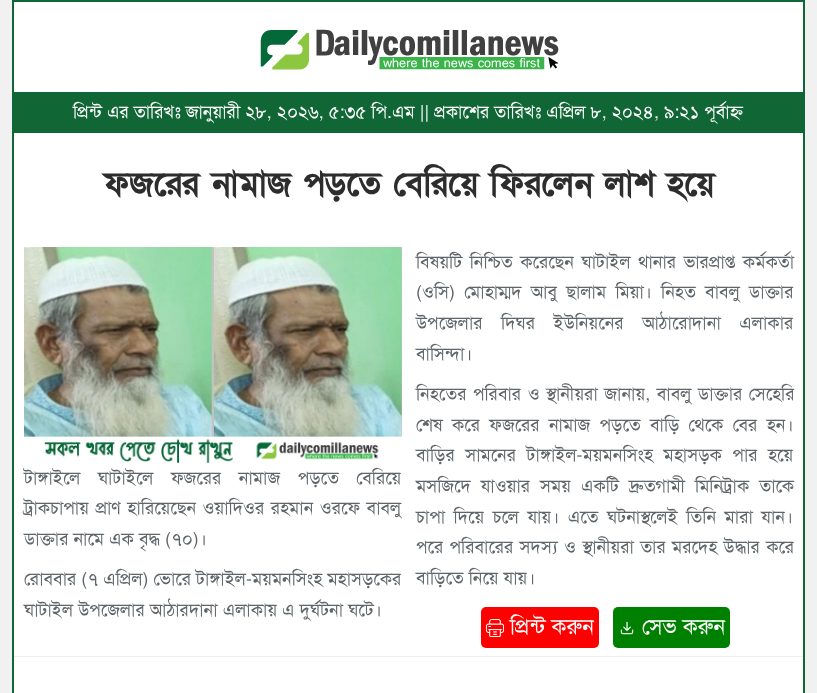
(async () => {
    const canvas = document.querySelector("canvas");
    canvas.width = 817;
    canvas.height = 693;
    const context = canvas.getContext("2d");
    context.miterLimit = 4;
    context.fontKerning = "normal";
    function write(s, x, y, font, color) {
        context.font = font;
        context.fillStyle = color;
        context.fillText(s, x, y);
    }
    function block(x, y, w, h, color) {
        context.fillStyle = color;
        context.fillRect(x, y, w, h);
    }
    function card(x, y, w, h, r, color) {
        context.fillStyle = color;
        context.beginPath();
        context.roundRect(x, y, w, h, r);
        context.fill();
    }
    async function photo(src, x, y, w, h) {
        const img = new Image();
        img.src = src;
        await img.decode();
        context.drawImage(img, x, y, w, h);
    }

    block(0, 0, 817, 693, "rgb(241, 241, 241)");
    context.fillStyle = "rgb(255, 255, 255)";
    context.beginPath();
    context.rect(13, 1, 791, 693);
    context.fill();
    context.strokeStyle = "rgb(16, 102, 52)";
    context.lineWidth = 2;
    context.stroke();
    await photo("media/1.png", 260, 29, 299, 41);
    block(14, 92, 789, 41, "rgb(16, 102, 52)");
    write("প্রিন্ট এর তারিখঃ জানুয়ারী ২৮, ২০২৬, ৫:৩৫ পি.এম || প্রকাশের তারিখঃ এপ্রিল ৮, ২০২৪, ৯:২১ পূর্বাহ্ণ", 73, 118, "18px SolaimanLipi", "rgb(255, 255, 255)");
    write("ফজরের নামাজ পড়তে বেরিয়ে ফিরলেন লাশ হয়ে", 103, 195, "bold 34px SolaimanLipi", "rgb(45, 45, 45)");
    context.wordSpacing = "2.5px";
    write("বিষয়টি নিশ্চিত করেছেন ঘাটাইল থানার ভারপ্রাপ্ত কর্মকর্তা", 416, 268, "18px SolaimanLipi", "rgb(95, 101, 105)");
    context.wordSpacing = "4.25px";
    write("(ওসি) মোহাম্মদ আবু ছালাম মিয়া। নিহত বাবলু ডাক্তার", 416, 298, "18px SolaimanLipi", "rgb(95, 101, 105)");
    context.wordSpacing = "13.5px";
    write("উপজেলার দিঘর ইউনিয়নের আঠারোদানা এলাকার", 416, 329, "18px SolaimanLipi", "rgb(95, 101, 105)");
    context.wordSpacing = "0px";
    write("বাসিন্দা।", 416, 360, "18px SolaimanLipi", "rgb(95, 101, 105)");
    await photo("media/2.png", 24, 247, 378, 216);
    context.wordSpacing = "12.5px";
    write("টাঙ্গাইলে ঘাটাইলে ফজরের নামাজ পড়তে বেরিয়ে", 24, 484, "18px SolaimanLipi", "rgb(95, 101, 105)");
    context.wordSpacing = "1.5px";
    write("ট্রাকচাপায় প্রাণ হারিয়েছেন ওয়াদিওর রহমান ওরফে বাবলু", 24, 514, "18px SolaimanLipi", "rgb(95, 101, 105)");
    context.wordSpacing = "0px";
    write("ডাক্তার নামে এক বৃদ্ধ (৭০)।", 24, 545, "18px SolaimanLipi", "rgb(95, 101, 105)");
    context.wordSpacing = "1.5px";
    write("নিহতের পরিবার ও স্থানীয়রা জানায়, বাবলু ডাক্তার সেহেরি", 416, 400, "18px SolaimanLipi", "rgb(95, 101, 105)");
    context.wordSpacing = "4.25px";
    write("শেষ করে ফজরের নামাজ পড়তে বাড়ি থেকে বের হন।", 416, 431, "18px SolaimanLipi", "rgb(95, 101, 105)");
    context.wordSpacing = "5.5px";
    write("বাড়ির সামনের টাঙ্গাইল-ময়মনসিংহ মহাসড়ক পার হয়ে", 416, 461, "18px SolaimanLipi", "rgb(95, 101, 105)");
    context.wordSpacing = "5px";
    write("মসজিদে যাওয়ার সময় একটি দ্রুতগামী মিনিট্রাক তাকে", 416, 492, "18px SolaimanLipi", "rgb(95, 101, 105)");
    context.wordSpacing = "3.5px";
    write("চাপা দিয়ে চলে যায়। এতে ঘটনাস্থলেই তিনি মারা যান।", 416, 523, "18px SolaimanLipi", "rgb(95, 101, 105)");
    context.wordSpacing = "1.25px";
    write("পরে পরিবারের সদস্য ও স্থানীয়রা তার মরদেহ উদ্ধার করে", 416, 553, "18px SolaimanLipi", "rgb(95, 101, 105)");
    context.wordSpacing = "0px";
    write("বাড়িতে নিয়ে যায়।", 416, 584, "18px SolaimanLipi", "rgb(95, 101, 105)");
    write("রোববার (৭ এপ্রিল) ভোরে টাঙ্গাইল-ময়মনসিংহ মহাসড়কের", 24, 585, "18px SolaimanLipi", "rgb(95, 101, 105)");
    write("ঘাটাইল উপজেলার আঠারদানা এলাকায় এ দুর্ঘটনা ঘটে।", 24, 616, "18px SolaimanLipi", "rgb(95, 101, 105)");
    block(14, 656, 789, 1, "rgb(238, 238, 238)");
    card(481, 607, 118, 41, 5, "rgb(255, 0, 0)");
    await photo("media/3.png", 486, 619, 18, 18);
    write("প্রিন্ট করুন", 510, 634, "22px SolaimanLipi", "rgb(255, 255, 255)");
    card(613, 607, 117, 41, 5, "rgb(0, 128, 0)");
    await photo("media/4.png", 620, 621, 14, 14);
    write("সেভ করুন", 642, 634, "22px SolaimanLipi", "rgb(255, 255, 255)");
})();
